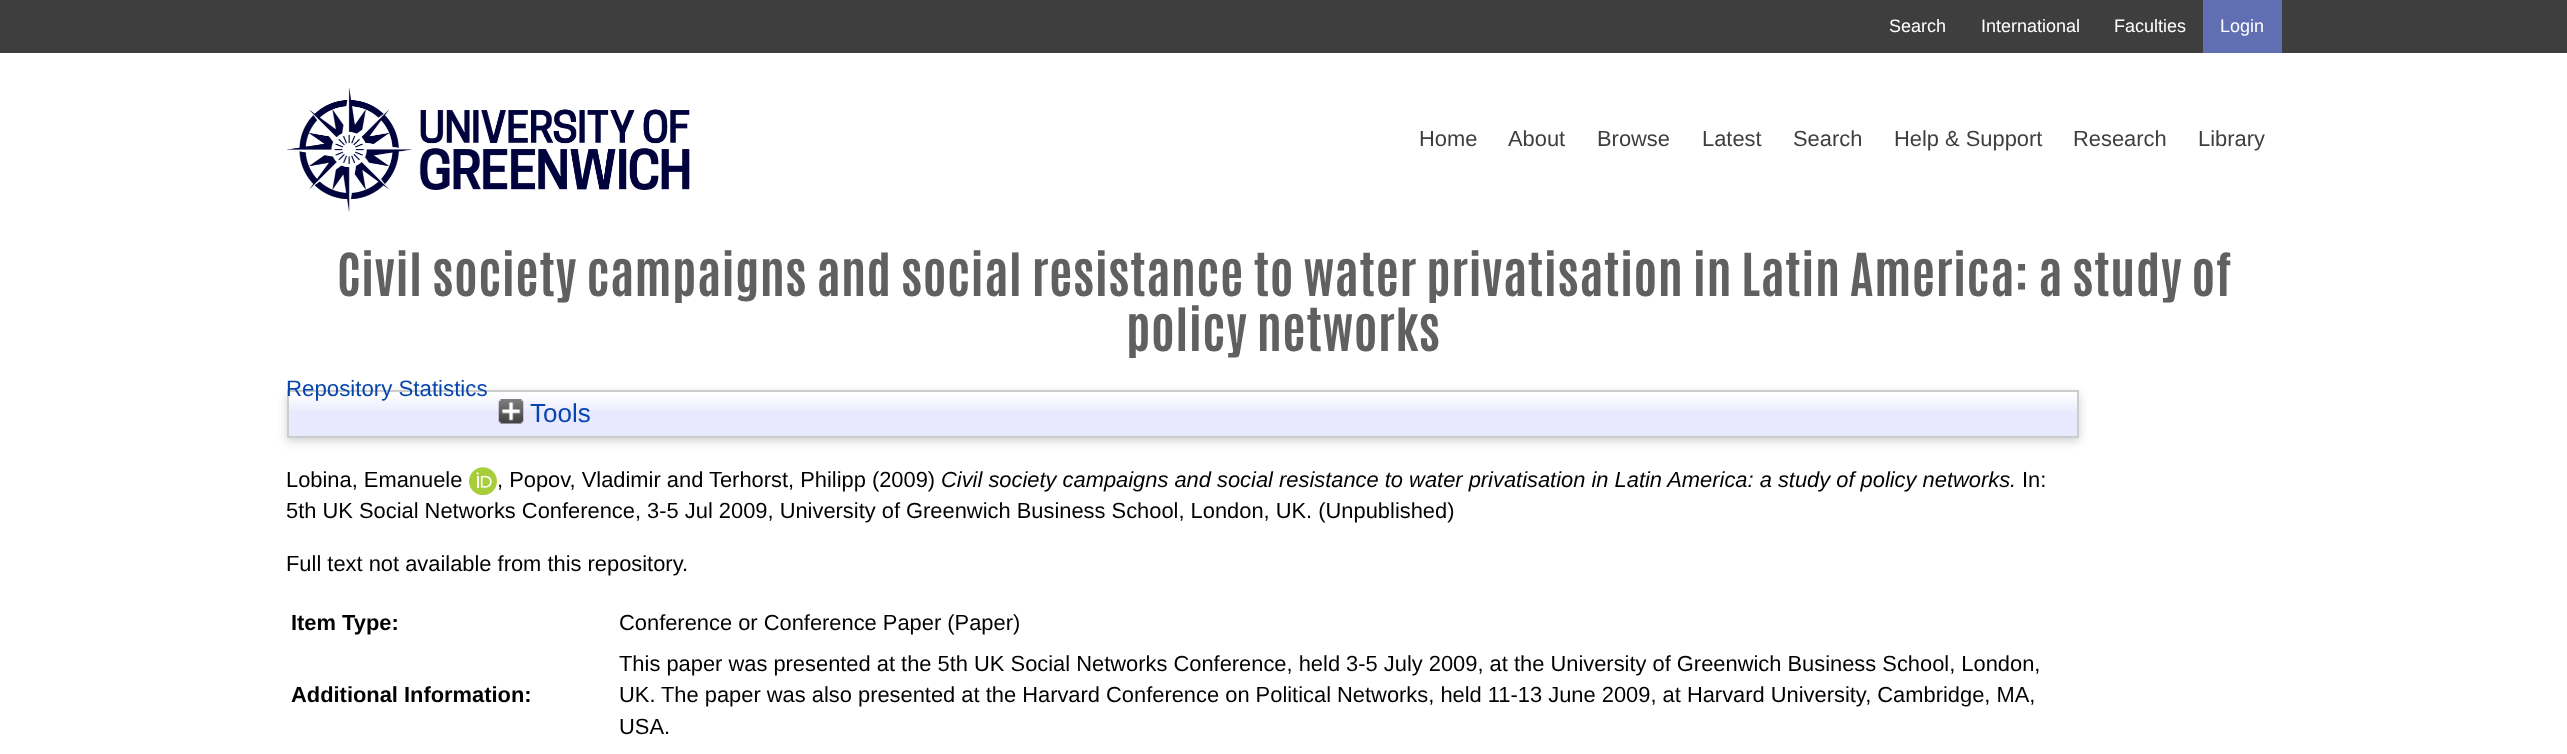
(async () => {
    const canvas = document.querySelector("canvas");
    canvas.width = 2567;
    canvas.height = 754;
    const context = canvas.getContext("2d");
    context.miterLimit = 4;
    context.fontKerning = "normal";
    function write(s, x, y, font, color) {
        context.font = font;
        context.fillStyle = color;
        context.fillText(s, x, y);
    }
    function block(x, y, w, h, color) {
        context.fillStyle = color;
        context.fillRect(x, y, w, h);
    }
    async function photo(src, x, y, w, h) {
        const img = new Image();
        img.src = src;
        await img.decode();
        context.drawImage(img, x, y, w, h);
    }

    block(0, 0, 2567, 754, "rgb(255, 255, 255)");
    block(0, 0, 2567, 53, "rgb(62, 62, 62)");
    write("Search", 1889, 32, "18px Liberation Sans", "rgb(255, 255, 255)");
    write("International", 1981, 32, "18px Liberation Sans", "rgb(255, 255, 255)");
    write("Faculties", 2114, 32, "18px Liberation Sans", "rgb(255, 255, 255)");
    block(2203, 0, 79, 53, "rgb(96, 110, 178)");
    write("Login", 2220, 32, "18px Liberation Sans", "rgb(255, 255, 255)");
    await photo("media/1.png", 287, 88, 403, 124);
    write("Home", 1419, 146, "21.88px Liberation Sans", "rgb(62, 62, 62)");
    write("About", 1508, 146, "21.88px Liberation Sans", "rgb(62, 62, 62)");
    write("Browse", 1597, 146, "21.88px Liberation Sans", "rgb(62, 62, 62)");
    write("Latest", 1702, 146, "21.88px Liberation Sans", "rgb(62, 62, 62)");
    write("Search", 1793, 146, "21.88px Liberation Sans", "rgb(62, 62, 62)");
    write("Help & Support", 1894, 146, "21.88px Liberation Sans", "rgb(62, 62, 62)");
    write("Research", 2073, 146, "21.88px Liberation Sans", "rgb(62, 62, 62)");
    write("Library", 2198, 146, "21.88px Liberation Sans", "rgb(62, 62, 62)");
    context.letterSpacing = "0.45px";
    write("Civil society campaigns and social resistance to water privatisation in Latin America: a study of", 337, 296, "bold 50.3px Antonio", "rgb(96, 96, 96)");
    write("policy networks", 1126, 351, "bold 50.3px Antonio", "rgb(96, 96, 96)");
    context.fillStyle = "rgba(100, 100, 100, 0.3)";
    context.filter = "blur(5px)";
    context.beginPath();
    context.rect(287, 394, 1792, 47);
    context.fill();
    context.filter = "none";
    block(289, 393, 1788, 43, "rgb(232, 232, 255)");
    await photo("media/2.png", 289, 392, 1788, 19);
    context.strokeStyle = "rgb(204, 204, 204)";
    context.lineWidth = 2;
    context.strokeRect(288, 391, 1790, 46);
    context.letterSpacing = "0px";
    write("Repository Statistics", 286, 396, "22.25px Liberation Sans", "rgb(6, 69, 173)");
    await photo("media/3.png", 498, 399, 26, 25);
    write("Tools", 530, 422, "26px Liberation Sans", "rgb(6, 69, 173)");
    write("Lobina, Emanuele", 286, 487, "21.88px Liberation Sans", "rgb(0, 0, 0)");
    await photo("media/4.png", 469, 467, 28, 28);
    write(", Popov, Vladimir and", 497, 487, "21.88px Liberation Sans", "rgb(0, 0, 0)");
    write("Terhorst, Philipp (2009)", 709, 487, "21.88px Liberation Sans", "rgb(0, 0, 0)");
    write("Civil society campaigns and social resistance to water privatisation in Latin America: a study of policy networks.", 941, 487, "italic 21.88px Liberation Sans", "rgb(0, 0, 0)");
    write("In:", 2022, 487, "21.88px Liberation Sans", "rgb(0, 0, 0)");
    write("5th UK Social Networks Conference, 3-5 Jul 2009, University of Greenwich Business School, London, UK. (Unpublished)", 286, 518, "21.88px Liberation Sans", "rgb(0, 0, 0)");
    write("Full text not available from this repository.", 286, 571, "21.88px Liberation Sans", "rgb(0, 0, 0)");
    write("Item Type:", 291, 630, "bold 21.88px Liberation Sans", "rgb(0, 0, 0)");
    write("Conference or Conference Paper (Paper)", 619, 630, "21.88px Liberation Sans", "rgb(0, 0, 0)");
    write("Additional Information:", 291, 702, "bold 21.88px Liberation Sans", "rgb(0, 0, 0)");
    write("This paper was presented at the 5th UK Social Networks Conference, held 3-5 July 2009, at the University of Greenwich Business School, London,", 619, 671, "21.88px Liberation Sans", "rgb(0, 0, 0)");
    write("UK.", 619, 702, "21.88px Liberation Sans", "rgb(0, 0, 0)");
    write("The paper was also presented at the Harvard Conference on Political Networks, held 11-13 June 2009, at Harvard University, Cambridge, MA,", 661, 702, "21.88px Liberation Sans", "rgb(0, 0, 0)");
    write("USA.", 619, 734, "21.88px Liberation Sans", "rgb(0, 0, 0)");
})();
